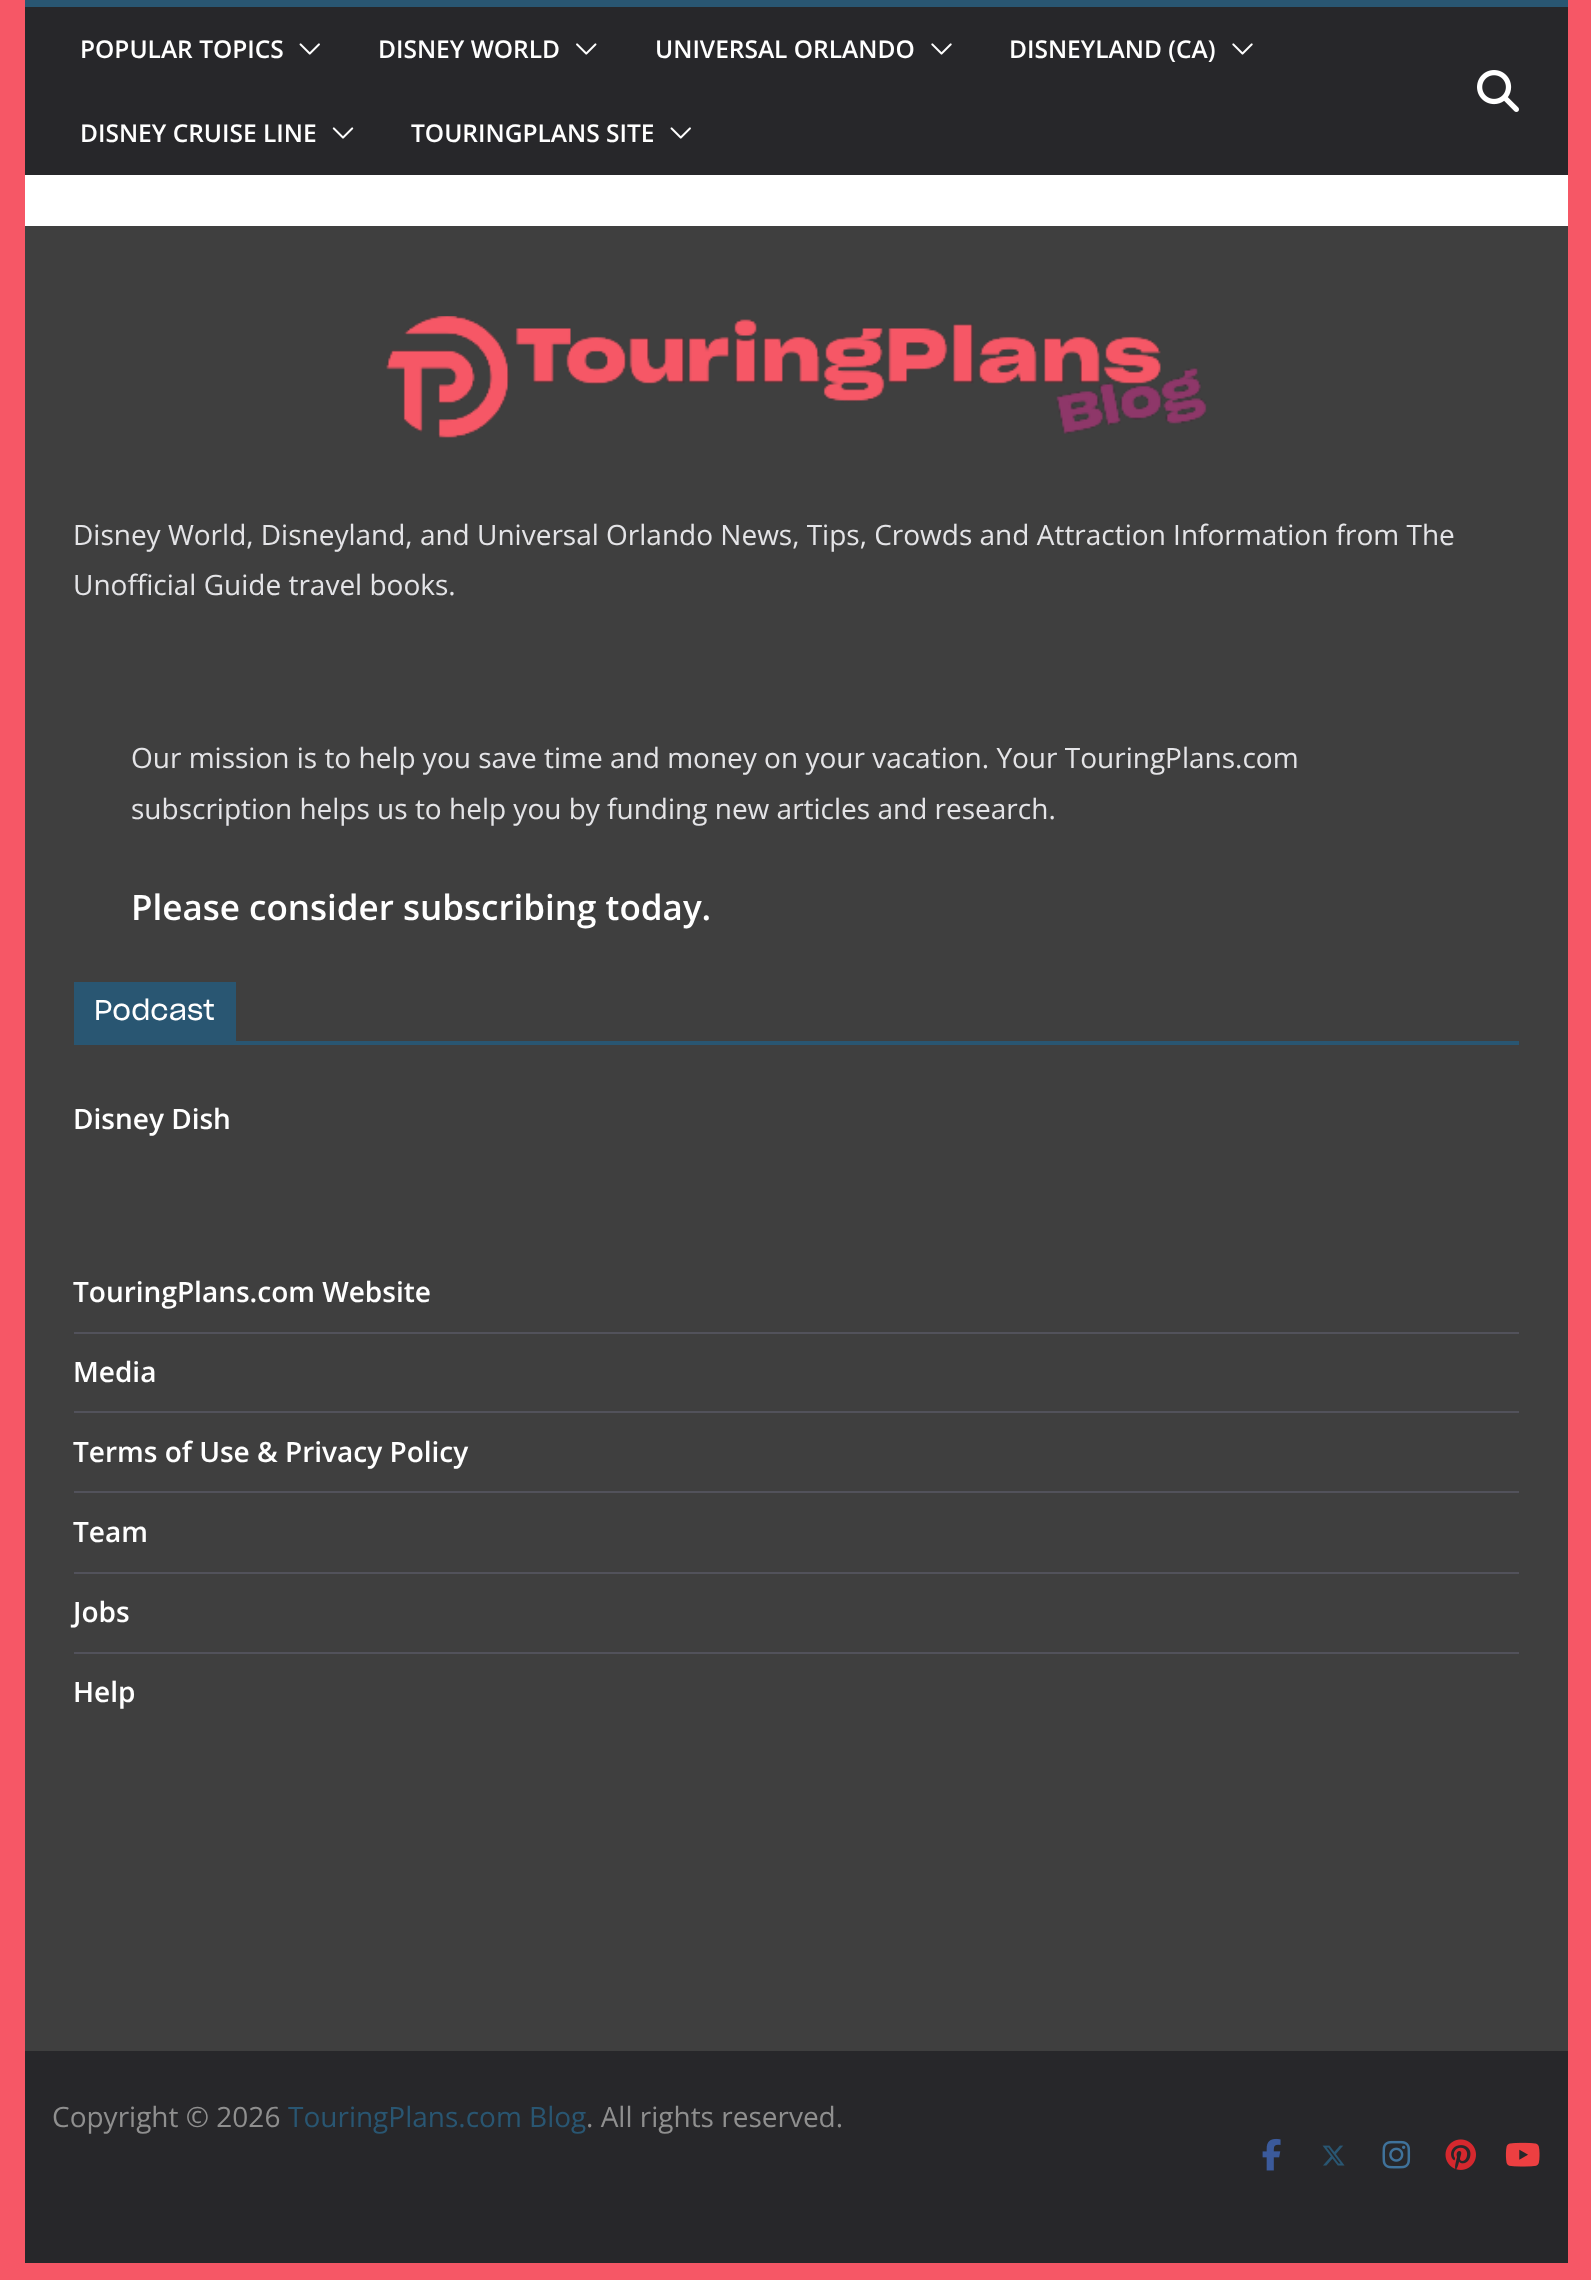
(async () => {
    const canvas = document.querySelector("canvas");
    canvas.width = 1591;
    canvas.height = 2280;
    const context = canvas.getContext("2d");
    context.miterLimit = 4;
    context.fontKerning = "normal";
    function write(s, x, y, font, color) {
        context.font = font;
        context.fillStyle = color;
        context.fillText(s, x, y);
    }
    function block(x, y, w, h, color) {
        context.fillStyle = color;
        context.fillRect(x, y, w, h);
    }
    async function photo(src, x, y, w, h) {
        const img = new Image();
        img.src = src;
        await img.decode();
        context.drawImage(img, x, y, w, h);
    }

    block(0, 0, 1591, 2280, "rgb(246, 87, 102)");
    block(25, 7, 1543, 168, "rgb(39, 39, 42)");
    block(25, 0, 1543, 7, "rgb(41, 86, 114)");
    write("POPULAR TOPICS", 80, 58, "600 24.5px Open Sans", "rgb(255, 255, 255)");
    await photo("media/1.png", 299, 43, 21, 12);
    write("DISNEY WORLD", 378, 58, "600 24.5px Open Sans", "rgb(255, 255, 255)");
    await photo("media/2.png", 576, 43, 21, 12);
    write("UNIVERSAL ORLANDO", 655, 58, "600 24.5px Open Sans", "rgb(255, 255, 255)");
    await photo("media/3.png", 931, 43, 21, 12);
    write("DISNEYLAND (CA)", 1009, 58, "600 24.5px Open Sans", "rgb(255, 255, 255)");
    await photo("media/3.png", 1232, 43, 21, 12);
    write("DISNEY CRUISE LINE", 80, 142, "600 24.5px Open Sans", "rgb(255, 255, 255)");
    await photo("media/4.png", 332, 127, 22, 12);
    write("TOURINGPLANS SITE", 411, 142, "600 24.5px Open Sans", "rgb(255, 255, 255)");
    await photo("media/1.png", 670, 127, 21, 12);
    await photo("media/5.png", 1477, 70, 42, 42);
    block(25, 175, 1543, 51, "rgb(255, 255, 255)");
    block(25, 226, 1543, 1825, "rgb(63, 63, 63)");
    await photo("media/6.png", 386, 316, 821, 122);
    write("Disney World, Disneyland, and Universal Orlando News, Tips, Crowds and Attraction Information from The", 73, 545, "28px Open Sans", "rgb(228, 228, 231)");
    write("Unofficial Guide travel books.", 73, 595, "28px Open Sans", "rgb(228, 228, 231)");
    write("Our mission is to help you save time and money on your vacation. Your TouringPlans.com", 131, 768, "28px Open Sans", "rgb(228, 228, 231)");
    write("subscription helps us to help you by funding new articles and research.", 131, 819, "28px Open Sans", "rgb(228, 228, 231)");
    write("Please consider subscribing today.", 131, 920, "600 35px Open Sans", "rgb(255, 255, 255)");
    block(74, 1041, 1445, 4, "rgb(41, 86, 114)");
    block(74, 982, 162, 59, "rgb(41, 86, 114)");
    write("Podcast", 94, 1020, "28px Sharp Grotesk", "rgb(255, 255, 255)");
    write("Disney Dish", 73, 1129, "600 28px Open Sans", "rgb(255, 255, 255)");
    block(74, 1332, 1445, 2, "rgb(82, 82, 91)");
    write("TouringPlans.com Website", 73, 1302, "600 28px Open Sans", "rgb(255, 255, 255)");
    block(74, 1411, 1445, 2, "rgb(82, 82, 91)");
    write("Media", 73, 1382, "600 28px Open Sans", "rgb(255, 255, 255)");
    block(74, 1491, 1445, 2, "rgb(82, 82, 91)");
    write("Terms of Use & Privacy Policy", 73, 1462, "600 28px Open Sans", "rgb(255, 255, 255)");
    block(74, 1572, 1445, 2, "rgb(82, 82, 91)");
    write("Team", 73, 1542, "600 28px Open Sans", "rgb(255, 255, 255)");
    block(74, 1652, 1445, 2, "rgb(82, 82, 91)");
    write("Jobs", 73, 1622, "600 28px Open Sans", "rgb(255, 255, 255)");
    write("Help", 73, 1702, "600 28px Open Sans", "rgb(255, 255, 255)");
    block(25, 2051, 1543, 212, "rgb(39, 39, 42)");
    write("Copyright © 2026", 52, 2127, "28px Open Sans", "rgb(143, 143, 143)");
    write("TouringPlans.com Blog", 288, 2127, "28px Open Sans", "rgb(41, 86, 114)");
    write(". All rights reserved.", 586, 2127, "28px Open Sans", "rgb(143, 143, 143)");
    await photo("media/7.png", 1262, 2138, 19, 33);
    await photo("media/8.png", 1322, 2145, 23, 21);
    await photo("media/9.png", 1382, 2140, 29, 29);
    await photo("media/10.png", 1445, 2139, 31, 31);
    await photo("media/11.png", 1505, 2142, 35, 25);
})();
